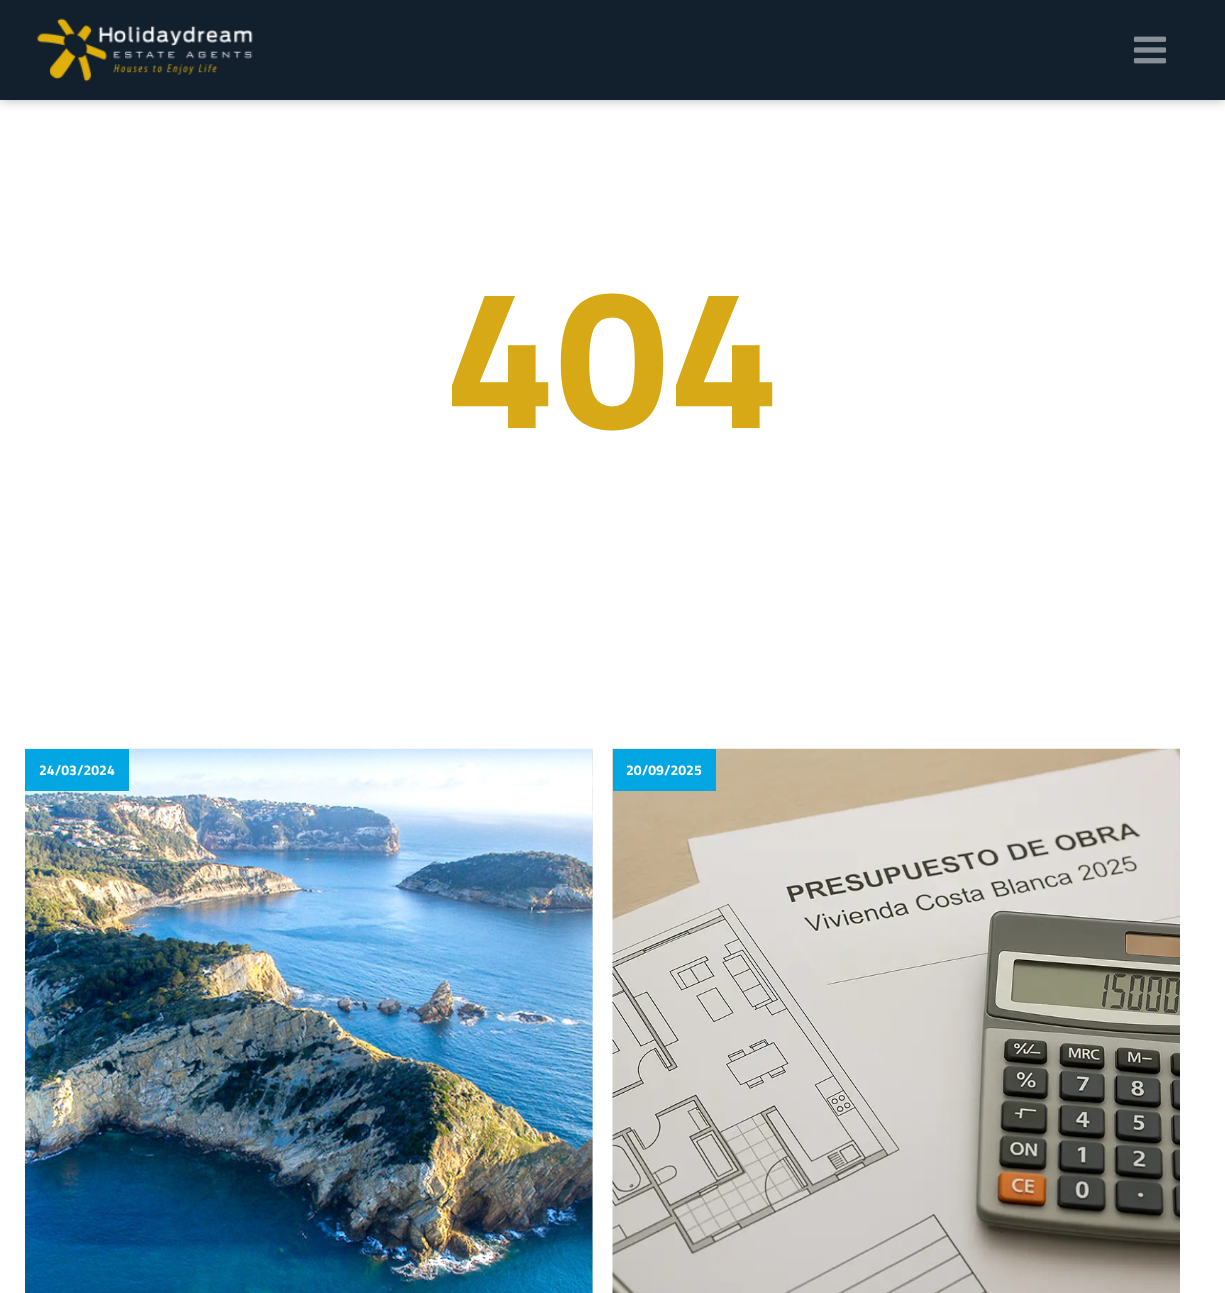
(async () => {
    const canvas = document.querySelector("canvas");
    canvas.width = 1225;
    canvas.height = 1293;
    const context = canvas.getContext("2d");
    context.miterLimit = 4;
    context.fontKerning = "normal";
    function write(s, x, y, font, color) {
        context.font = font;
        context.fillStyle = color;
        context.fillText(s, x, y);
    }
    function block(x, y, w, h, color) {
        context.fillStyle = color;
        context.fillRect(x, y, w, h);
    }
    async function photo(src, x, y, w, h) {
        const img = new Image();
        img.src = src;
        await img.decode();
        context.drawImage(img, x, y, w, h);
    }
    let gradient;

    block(0, 0, 1225, 1293, "rgb(255, 255, 255)");
    context.fillStyle = "rgba(0, 0, 0, 0.3)";
    context.filter = "blur(6px)";
    context.beginPath();
    context.rect(0, 0, 1225, 100);
    context.fill();
    context.filter = "none";
    block(0, 0, 1225, 100, "rgb(18, 31, 45)");
    await photo("media/1.png", 37, 18, 216, 64);
    await photo("media/2.png", 1133, 36, 34, 28);
    write("404", 444, 428, "bold 200px Titillium Web", "rgb(215, 169, 22)");
    gradient = context.createLinearGradient(25, 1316, 608, 733);
    gradient.addColorStop(0, "rgb(238, 238, 238)");
    gradient.addColorStop(0.02, "rgb(238, 238, 238)");
    gradient.addColorStop(0.02, "rgb(221, 221, 221)");
    gradient.addColorStop(0.03, "rgb(221, 221, 221)");
    gradient.addColorStop(0.03, "rgb(238, 238, 238)");
    gradient.addColorStop(0.05, "rgb(238, 238, 238)");
    gradient.addColorStop(0.05, "rgb(221, 221, 221)");
    gradient.addColorStop(0.06, "rgb(221, 221, 221)");
    gradient.addColorStop(0.06, "rgb(238, 238, 238)");
    gradient.addColorStop(0.08, "rgb(238, 238, 238)");
    gradient.addColorStop(0.08, "rgb(221, 221, 221)");
    gradient.addColorStop(0.09, "rgb(221, 221, 221)");
    gradient.addColorStop(0.09, "rgb(238, 238, 238)");
    gradient.addColorStop(0.11, "rgb(238, 238, 238)");
    gradient.addColorStop(0.11, "rgb(221, 221, 221)");
    gradient.addColorStop(0.12, "rgb(221, 221, 221)");
    gradient.addColorStop(0.12, "rgb(238, 238, 238)");
    gradient.addColorStop(0.14, "rgb(238, 238, 238)");
    gradient.addColorStop(0.14, "rgb(221, 221, 221)");
    gradient.addColorStop(0.15, "rgb(221, 221, 221)");
    gradient.addColorStop(0.15, "rgb(238, 238, 238)");
    gradient.addColorStop(0.17, "rgb(238, 238, 238)");
    gradient.addColorStop(0.17, "rgb(221, 221, 221)");
    gradient.addColorStop(0.18, "rgb(221, 221, 221)");
    gradient.addColorStop(0.18, "rgb(238, 238, 238)");
    gradient.addColorStop(0.2, "rgb(238, 238, 238)");
    gradient.addColorStop(0.2, "rgb(221, 221, 221)");
    gradient.addColorStop(0.21, "rgb(221, 221, 221)");
    gradient.addColorStop(0.21, "rgb(238, 238, 238)");
    gradient.addColorStop(0.23, "rgb(238, 238, 238)");
    gradient.addColorStop(0.23, "rgb(221, 221, 221)");
    gradient.addColorStop(0.24, "rgb(221, 221, 221)");
    gradient.addColorStop(0.24, "rgb(238, 238, 238)");
    gradient.addColorStop(0.26, "rgb(238, 238, 238)");
    gradient.addColorStop(0.26, "rgb(221, 221, 221)");
    gradient.addColorStop(0.27, "rgb(221, 221, 221)");
    gradient.addColorStop(0.27, "rgb(238, 238, 238)");
    gradient.addColorStop(0.29, "rgb(238, 238, 238)");
    gradient.addColorStop(0.29, "rgb(221, 221, 221)");
    gradient.addColorStop(0.3, "rgb(221, 221, 221)");
    gradient.addColorStop(0.3, "rgb(238, 238, 238)");
    gradient.addColorStop(0.32, "rgb(238, 238, 238)");
    gradient.addColorStop(0.32, "rgb(221, 221, 221)");
    gradient.addColorStop(0.33, "rgb(221, 221, 221)");
    gradient.addColorStop(0.33, "rgb(238, 238, 238)");
    gradient.addColorStop(0.35, "rgb(238, 238, 238)");
    gradient.addColorStop(0.35, "rgb(221, 221, 221)");
    gradient.addColorStop(0.36, "rgb(221, 221, 221)");
    gradient.addColorStop(0.36, "rgb(238, 238, 238)");
    gradient.addColorStop(0.38, "rgb(238, 238, 238)");
    gradient.addColorStop(0.38, "rgb(221, 221, 221)");
    gradient.addColorStop(0.39, "rgb(221, 221, 221)");
    gradient.addColorStop(0.39, "rgb(238, 238, 238)");
    gradient.addColorStop(0.41, "rgb(238, 238, 238)");
    gradient.addColorStop(0.41, "rgb(221, 221, 221)");
    gradient.addColorStop(0.42, "rgb(221, 221, 221)");
    gradient.addColorStop(0.42, "rgb(238, 238, 238)");
    gradient.addColorStop(0.44, "rgb(238, 238, 238)");
    gradient.addColorStop(0.44, "rgb(221, 221, 221)");
    gradient.addColorStop(0.45, "rgb(221, 221, 221)");
    gradient.addColorStop(0.45, "rgb(238, 238, 238)");
    gradient.addColorStop(0.47, "rgb(238, 238, 238)");
    gradient.addColorStop(0.47, "rgb(221, 221, 221)");
    gradient.addColorStop(0.48, "rgb(221, 221, 221)");
    gradient.addColorStop(0.48, "rgb(238, 238, 238)");
    gradient.addColorStop(0.5, "rgb(238, 238, 238)");
    gradient.addColorStop(0.5, "rgb(221, 221, 221)");
    gradient.addColorStop(0.52, "rgb(221, 221, 221)");
    gradient.addColorStop(0.52, "rgb(238, 238, 238)");
    gradient.addColorStop(0.53, "rgb(238, 238, 238)");
    gradient.addColorStop(0.53, "rgb(221, 221, 221)");
    gradient.addColorStop(0.55, "rgb(221, 221, 221)");
    gradient.addColorStop(0.55, "rgb(238, 238, 238)");
    gradient.addColorStop(0.56, "rgb(238, 238, 238)");
    gradient.addColorStop(0.56, "rgb(221, 221, 221)");
    gradient.addColorStop(0.58, "rgb(221, 221, 221)");
    gradient.addColorStop(0.58, "rgb(238, 238, 238)");
    gradient.addColorStop(0.59, "rgb(238, 238, 238)");
    gradient.addColorStop(0.59, "rgb(221, 221, 221)");
    gradient.addColorStop(0.61, "rgb(221, 221, 221)");
    gradient.addColorStop(0.61, "rgb(238, 238, 238)");
    gradient.addColorStop(0.62, "rgb(238, 238, 238)");
    gradient.addColorStop(0.62, "rgb(221, 221, 221)");
    gradient.addColorStop(0.64, "rgb(221, 221, 221)");
    gradient.addColorStop(0.64, "rgb(238, 238, 238)");
    gradient.addColorStop(0.65, "rgb(238, 238, 238)");
    gradient.addColorStop(0.65, "rgb(221, 221, 221)");
    gradient.addColorStop(0.67, "rgb(221, 221, 221)");
    gradient.addColorStop(0.67, "rgb(238, 238, 238)");
    gradient.addColorStop(0.68, "rgb(238, 238, 238)");
    gradient.addColorStop(0.68, "rgb(221, 221, 221)");
    gradient.addColorStop(0.7, "rgb(221, 221, 221)");
    gradient.addColorStop(0.7, "rgb(238, 238, 238)");
    gradient.addColorStop(0.71, "rgb(238, 238, 238)");
    gradient.addColorStop(0.71, "rgb(221, 221, 221)");
    gradient.addColorStop(0.73, "rgb(221, 221, 221)");
    gradient.addColorStop(0.73, "rgb(238, 238, 238)");
    gradient.addColorStop(0.74, "rgb(238, 238, 238)");
    gradient.addColorStop(0.74, "rgb(221, 221, 221)");
    gradient.addColorStop(0.76, "rgb(221, 221, 221)");
    gradient.addColorStop(0.76, "rgb(238, 238, 238)");
    gradient.addColorStop(0.77, "rgb(238, 238, 238)");
    gradient.addColorStop(0.77, "rgb(221, 221, 221)");
    gradient.addColorStop(0.79, "rgb(221, 221, 221)");
    gradient.addColorStop(0.79, "rgb(238, 238, 238)");
    gradient.addColorStop(0.8, "rgb(238, 238, 238)");
    gradient.addColorStop(0.8, "rgb(221, 221, 221)");
    gradient.addColorStop(0.82, "rgb(221, 221, 221)");
    gradient.addColorStop(0.82, "rgb(238, 238, 238)");
    gradient.addColorStop(0.83, "rgb(238, 238, 238)");
    gradient.addColorStop(0.83, "rgb(221, 221, 221)");
    gradient.addColorStop(0.85, "rgb(221, 221, 221)");
    gradient.addColorStop(0.85, "rgb(238, 238, 238)");
    gradient.addColorStop(0.86, "rgb(238, 238, 238)");
    gradient.addColorStop(0.86, "rgb(221, 221, 221)");
    gradient.addColorStop(0.88, "rgb(221, 221, 221)");
    gradient.addColorStop(0.88, "rgb(238, 238, 238)");
    gradient.addColorStop(0.89, "rgb(238, 238, 238)");
    gradient.addColorStop(0.89, "rgb(221, 221, 221)");
    gradient.addColorStop(0.91, "rgb(221, 221, 221)");
    gradient.addColorStop(0.91, "rgb(238, 238, 238)");
    gradient.addColorStop(0.92, "rgb(238, 238, 238)");
    gradient.addColorStop(0.92, "rgb(221, 221, 221)");
    gradient.addColorStop(0.94, "rgb(221, 221, 221)");
    gradient.addColorStop(0.94, "rgb(238, 238, 238)");
    gradient.addColorStop(0.95, "rgb(238, 238, 238)");
    gradient.addColorStop(0.95, "rgb(221, 221, 221)");
    gradient.addColorStop(0.97, "rgb(221, 221, 221)");
    gradient.addColorStop(0.97, "rgb(238, 238, 238)");
    gradient.addColorStop(0.98, "rgb(238, 238, 238)");
    gradient.addColorStop(0.98, "rgb(221, 221, 221)");
    gradient.addColorStop(1, "rgb(221, 221, 221)");
    context.fillStyle = gradient;
    context.fillRect(592, 749, 1, 544);
    await photo("media/3.png", 25, 748, 568, 545);
    block(25, 749, 104, 42, "rgb(1, 166, 226)");
    write("24/03/2024", 39, 775, "bold 14px Titillium Web", "rgb(255, 255, 255)");
    await photo("media/4.png", 612, 748, 568, 545);
    block(613, 749, 103, 42, "rgb(1, 166, 226)");
    write("20/09/2025", 626, 775, "bold 14px Titillium Web", "rgb(255, 255, 255)");
})();
